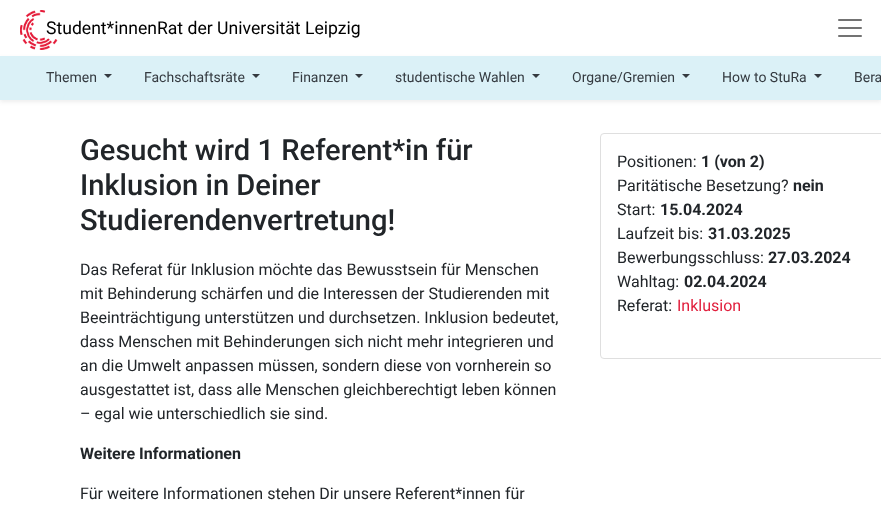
(async () => {
    const canvas = document.querySelector("canvas");
    canvas.width = 881;
    canvas.height = 517;
    const context = canvas.getContext("2d");
    context.miterLimit = 4;
    context.fontKerning = "normal";
    function write(s, x, y, font, color) {
        context.font = font;
        context.fillStyle = color;
        context.fillText(s, x, y);
    }
    function block(x, y, w, h, color) {
        context.fillStyle = color;
        context.fillRect(x, y, w, h);
    }
    async function photo(src, x, y, w, h) {
        const img = new Image();
        img.src = src;
        await img.decode();
        context.drawImage(img, x, y, w, h);
    }

    block(0, 0, 881, 517, "rgb(255, 255, 255)");
    write("Student*innenRat der Universität Leipzig", 46, 34, "17.6px Roboto", "rgb(0, 0, 0)");
    await photo("media/1.png", 20, 10, 38, 40);
    await photo("media/2.png", 838, 19, 24, 18);
    context.fillStyle = "rgba(0, 0, 0, 0.07)";
    context.filter = "blur(2px)";
    context.beginPath();
    context.rect(0, 58, 881, 44);
    context.fill();
    context.filter = "none";
    block(0, 56, 881, 44, "rgb(219, 241, 247)");
    write("Themen", 46, 82, "14px Roboto", "rgb(52, 58, 64)");
    context.beginPath();
    context.moveTo(104, 74);
    context.lineTo(112, 74);
    context.lineTo(108, 78);
    context.closePath();
    context.fill();
    write("Fachschaftsräte", 144, 82, "14px Roboto", "rgb(52, 58, 64)");
    context.beginPath();
    context.moveTo(252, 74);
    context.lineTo(260, 74);
    context.lineTo(256, 78);
    context.closePath();
    context.fill();
    write("Finanzen", 292, 82, "14px Roboto", "rgb(52, 58, 64)");
    context.beginPath();
    context.moveTo(355, 74);
    context.lineTo(363, 74);
    context.lineTo(359, 78);
    context.closePath();
    context.fill();
    write("studentische Wahlen", 395, 82, "14px Roboto", "rgb(52, 58, 64)");
    context.beginPath();
    context.moveTo(532, 74);
    context.lineTo(540, 74);
    context.lineTo(536, 78);
    context.closePath();
    context.fill();
    write("Organe/Gremien", 572, 82, "14px Roboto", "rgb(52, 58, 64)");
    context.beginPath();
    context.moveTo(682, 74);
    context.lineTo(690, 74);
    context.lineTo(686, 78);
    context.closePath();
    context.fill();
    write("How to StuRa", 722, 82, "14px Roboto", "rgb(52, 58, 64)");
    context.beginPath();
    context.moveTo(814, 74);
    context.lineTo(822, 74);
    context.lineTo(818, 78);
    context.closePath();
    context.fill();
    write("Bera", 854, 82, "14px Roboto", "rgb(52, 58, 64)");
    write("Gesucht wird 1 Referent*in für", 80, 160, "500 29.1px Roboto", "rgb(33, 37, 41)");
    write("Inklusion in Deiner", 80, 195, "500 29.1px Roboto", "rgb(33, 37, 41)");
    write("Studierendenvertretung!", 80, 230, "500 29.1px Roboto", "rgb(33, 37, 41)");
    write("Das Referat für Inklusion möchte das Bewusstsein für Menschen", 80, 275, "16px Roboto", "rgb(33, 37, 41)");
    write("mit Behinderung schärfen und die Interessen der Studierenden mit", 80, 299, "16px Roboto", "rgb(33, 37, 41)");
    write("Beeinträchtigung unterstützen und durchsetzen. Inklusion bedeutet,", 80, 323, "16px Roboto", "rgb(33, 37, 41)");
    write("dass Menschen mit Behinderungen sich nicht mehr integrieren und", 80, 347, "16px Roboto", "rgb(33, 37, 41)");
    write("an die Umwelt anpassen müssen, sondern diese von vornherein so", 80, 371, "16px Roboto", "rgb(33, 37, 41)");
    write("ausgestattet ist, dass alle Menschen gleichberechtigt leben können", 80, 395, "16px Roboto", "rgb(33, 37, 41)");
    write("– egal wie unterschiedlich sie sind.", 80, 419, "16px Roboto", "rgb(33, 37, 41)");
    write("Weitere Informationen", 80, 459, "bold 16px Roboto", "rgb(33, 37, 41)");
    write("Für weitere Informationen stehen Dir unsere Referent*innen für", 80, 499, "16px Roboto", "rgb(33, 37, 41)");
    context.beginPath();
    context.roundRect(600.5, 133.5, 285, 225, 3.5);
    context.strokeStyle = "rgb(223, 223, 223)";
    context.stroke();
    write("Positionen:", 617, 167, "16px Roboto", "rgb(33, 37, 41)");
    write("1 (von 2)", 701, 167, "bold 16px Roboto", "rgb(33, 37, 41)");
    write("Paritätische Besetzung?", 617, 191, "16px Roboto", "rgb(33, 37, 41)");
    write("nein", 793, 191, "bold 16px Roboto", "rgb(33, 37, 41)");
    write("Start:", 617, 215, "16px Roboto", "rgb(33, 37, 41)");
    write("15.04.2024", 660, 215, "bold 16px Roboto", "rgb(33, 37, 41)");
    write("Laufzeit bis:", 617, 239, "16px Roboto", "rgb(33, 37, 41)");
    write("31.03.2025", 708, 239, "bold 16px Roboto", "rgb(33, 37, 41)");
    write("Bewerbungsschluss:", 617, 263, "16px Roboto", "rgb(33, 37, 41)");
    write("27.03.2024", 768, 263, "bold 16px Roboto", "rgb(33, 37, 41)");
    write("Wahltag:", 617, 287, "16px Roboto", "rgb(33, 37, 41)");
    write("02.04.2024", 684, 287, "bold 16px Roboto", "rgb(33, 37, 41)");
    write("Referat:", 617, 311, "16px Roboto", "rgb(33, 37, 41)");
    write("Inklusion", 677, 311, "16px Roboto", "rgb(225, 30, 60)");
})();
